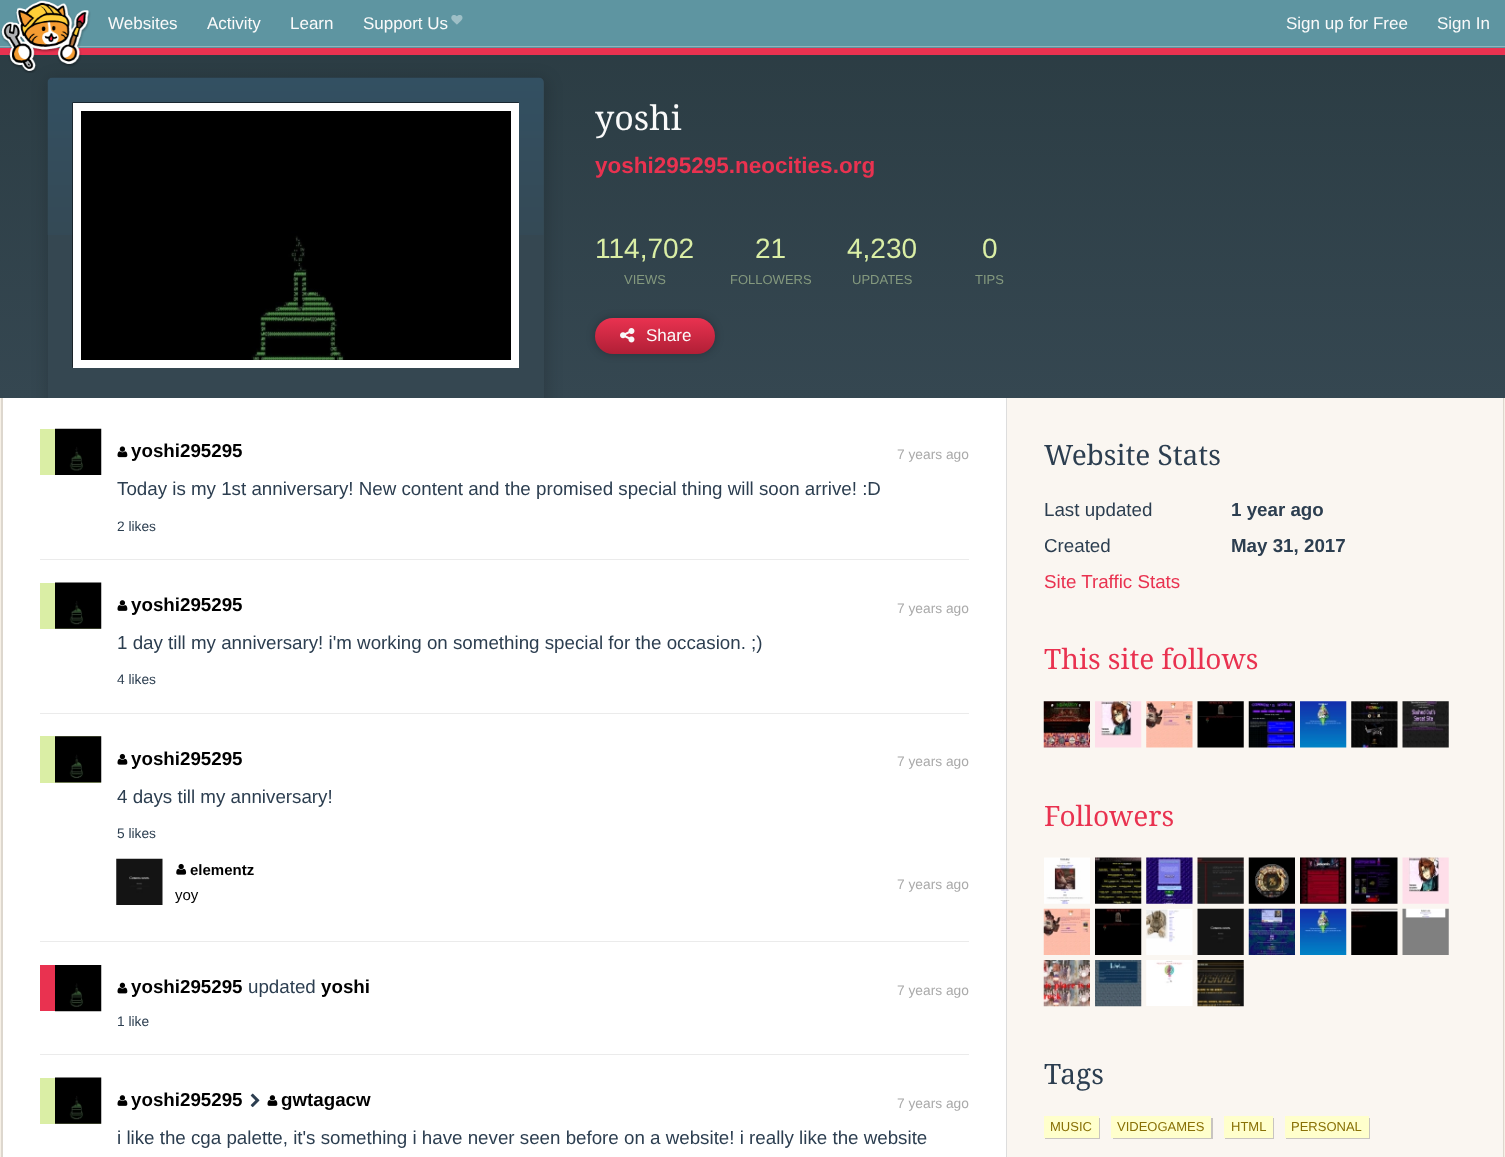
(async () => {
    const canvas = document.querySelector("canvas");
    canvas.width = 1505;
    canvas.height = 1157;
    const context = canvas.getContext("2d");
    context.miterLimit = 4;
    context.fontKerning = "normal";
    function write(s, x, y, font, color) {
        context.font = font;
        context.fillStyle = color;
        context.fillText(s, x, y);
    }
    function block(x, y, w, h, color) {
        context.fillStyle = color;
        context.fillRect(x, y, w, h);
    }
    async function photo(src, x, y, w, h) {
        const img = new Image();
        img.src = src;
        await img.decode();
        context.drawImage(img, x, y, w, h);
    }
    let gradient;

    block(0, 0, 1505, 1157, "rgb(246, 240, 230)");
    gradient = context.createLinearGradient(753, 27, 753, 398);
    gradient.addColorStop(0, "rgb(43, 60, 67)");
    gradient.addColorStop(1, "rgb(53, 71, 81)");
    context.fillStyle = gradient;
    context.fillRect(0, 55, 1505, 343);
    context.fillStyle = "rgba(0, 0, 0, 0.15)";
    context.filter = "blur(7.5px)";
    context.beginPath();
    context.roundRect(46, 78, 502, 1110, 8);
    context.fill();
    context.filter = "none";
    block(0, 48, 1505, 7, "rgb(233, 50, 80)");
    block(0, 0, 1505, 48, "rgb(94, 149, 161)");
    block(0, 46, 1505, 1, "rgb(146, 180, 189)");
    await photo("media/1.png", 1, 0, 90, 73);
    write("Websites", 108, 29, "17px Liberation Sans", "rgb(250, 250, 250)");
    write("Activity", 207, 29, "17px Liberation Sans", "rgb(250, 250, 250)");
    write("Learn", 290, 29, "17px Liberation Sans", "rgb(250, 250, 250)");
    write("Support Us", 363, 29, "17px Liberation Sans", "rgb(250, 250, 250)");
    await photo("media/2.png", 451, 15, 12, 10);
    write("Sign up for Free", 1286, 29, "17px Liberation Sans", "rgb(250, 250, 250)");
    write("Sign In", 1437, 29, "17px Liberation Sans", "rgb(250, 250, 250)");
    context.fillStyle = "rgb(53, 71, 81)";
    context.beginPath();
    context.roundRect(48, 78, 496, 320, [5, 5, 0, 0]);
    context.fill();
    await photo("media/3.png", 47, 77, 497, 158);
    await photo("media/4.png", 72, 102, 447, 266);
    context.strokeStyle = "rgb(255, 255, 255)";
    context.lineWidth = 8;
    context.strokeRect(77, 107, 438, 257);
    write("yoshi", 595, 130, "34px Droid Serif", "rgb(250, 250, 250)");
    write("yoshi295295.neocities.org", 595, 173, "bold 22.5px Liberation Sans", "rgb(233, 50, 80)");
    write("114,702", 595, 258, "28px Liberation Sans", "rgb(218, 238, 165)");
    write("VIEWS", 624, 284, "13px Liberation Sans", "rgb(132, 153, 126)");
    write("21", 755, 258, "28px Liberation Sans", "rgb(218, 238, 165)");
    write("FOLLOWERS", 730, 284, "13px Liberation Sans", "rgb(132, 153, 126)");
    write("4,230", 847, 258, "28px Liberation Sans", "rgb(218, 238, 165)");
    write("UPDATES", 852, 284, "13px Liberation Sans", "rgb(132, 153, 126)");
    write("0", 982, 258, "28px Liberation Sans", "rgb(218, 238, 165)");
    write("TIPS", 975, 284, "13px Liberation Sans", "rgb(132, 153, 126)");
    context.fillStyle = "rgba(0, 0, 0, 0.25)";
    context.filter = "blur(4px)";
    context.beginPath();
    context.roundRect(595, 318, 120, 36, 18);
    context.fill();
    context.filter = "none";
    gradient = context.createLinearGradient(655, 318, 655, 354);
    gradient.addColorStop(0, "rgb(233, 50, 80)");
    gradient.addColorStop(1, "rgb(177, 31, 54)");
    context.fillStyle = gradient;
    context.beginPath();
    context.roundRect(595, 318, 120, 36, 18);
    context.fill();
    await photo("media/5.png", 620, 328, 15, 15);
    write("Share", 646, 341, "17px Liberation Sans", "rgb(250, 250, 250)");
    context.fillStyle = "rgba(0, 0, 0, 0.1)";
    context.filter = "blur(0.5px)";
    context.beginPath();
    context.rect(1, 398, 1503, 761);
    context.fill();
    context.filter = "none";
    block(1007, 398, 496, 759, "rgb(250, 246, 241)");
    block(1006, 398, 1, 759, "rgb(221, 221, 221)");
    block(3, 398, 1003, 759, "rgb(255, 255, 255)");
    block(40, 429, 15, 46, "rgb(218, 238, 165)");
    await photo("media/6.png", 55, 428, 47, 47);
    await photo("media/7.png", 117, 446, 11, 12);
    write("yoshi295295", 131, 457, "bold 18.75px Liberation Sans", "rgb(0, 0, 0)");
    write("7 years ago", 897, 459, "13.75px Liberation Sans", "rgb(170, 170, 170)");
    write("Today is my 1st anniversary! New content and the promised special thing will soon arrive! :D", 117, 495, "18.75px Liberation Sans", "rgb(44, 62, 80)");
    write("2 likes", 117, 531, "13.75px Liberation Sans", "rgb(44, 62, 80)");
    block(40, 559, 929, 1, "rgb(235, 235, 235)");
    block(40, 583, 61, 46, "rgb(218, 238, 165)");
    await photo("media/8.png", 55, 582, 47, 47);
    await photo("media/9.png", 117, 600, 11, 11);
    write("yoshi295295", 131, 611, "bold 18.75px Liberation Sans", "rgb(0, 0, 0)");
    write("7 years ago", 897, 613, "13.75px Liberation Sans", "rgb(170, 170, 170)");
    write("1 day till my anniversary! i'm working on something special for the occasion. ;)", 117, 649, "18.75px Liberation Sans", "rgb(44, 62, 80)");
    write("4 likes", 117, 684, "13.75px Liberation Sans", "rgb(44, 62, 80)");
    block(40, 713, 929, 1, "rgb(235, 235, 235)");
    block(40, 736, 61, 47, "rgb(218, 238, 165)");
    await photo("media/10.png", 55, 736, 47, 47);
    await photo("media/11.png", 117, 753, 11, 12);
    write("yoshi295295", 131, 765, "bold 18.75px Liberation Sans", "rgb(0, 0, 0)");
    write("7 years ago", 897, 766, "13.75px Liberation Sans", "rgb(170, 170, 170)");
    write("4 days till my anniversary!", 117, 803, "18.75px Liberation Sans", "rgb(44, 62, 80)");
    write("5 likes", 117, 838, "13.75px Liberation Sans", "rgb(44, 62, 80)");
    await photo("media/12.png", 116, 858, 47, 47);
    await photo("media/13.png", 176, 863, 11, 12);
    write("elementz", 190, 875, "bold 15px Liberation Sans", "rgb(0, 0, 0)");
    write("7 years ago", 897, 889, "13.75px Liberation Sans", "rgb(170, 170, 170)");
    write("yoy", 175, 900, "15px Liberation Sans", "rgb(0, 0, 0)");
    block(40, 941, 929, 1, "rgb(235, 235, 235)");
    block(40, 965, 15, 46, "rgb(233, 50, 80)");
    await photo("media/14.png", 55, 965, 47, 47);
    await photo("media/15.png", 117, 982, 11, 12);
    write("yoshi295295", 131, 993, "bold 18.75px Liberation Sans", "rgb(0, 0, 0)");
    write("updated", 248, 993, "18.75px Liberation Sans", "rgb(44, 62, 80)");
    write("yoshi", 321, 993, "bold 18.75px Liberation Sans", "rgb(0, 0, 0)");
    write("7 years ago", 897, 995, "13.75px Liberation Sans", "rgb(170, 170, 170)");
    write("1 like", 117, 1026, "13.75px Liberation Sans", "rgb(44, 62, 80)");
    block(40, 1054, 929, 1, "rgb(235, 235, 235)");
    block(40, 1078, 61, 46, "rgb(218, 238, 165)");
    await photo("media/8.png", 55, 1077, 47, 47);
    await photo("media/9.png", 117, 1095, 11, 11);
    write("yoshi295295", 131, 1106, "bold 18.75px Liberation Sans", "rgb(0, 0, 0)");
    await photo("media/16.png", 250, 1093, 10, 15);
    await photo("media/9.png", 267, 1095, 11, 11);
    write("gwtagacw", 281, 1106, "bold 18.75px Liberation Sans", "rgb(0, 0, 0)");
    write("7 years ago", 897, 1108, "13.75px Liberation Sans", "rgb(170, 170, 170)");
    write("i like the cga palette, it's something i have never seen before on a website! i really like the website", 117, 1144, "18.75px Liberation Sans", "rgb(44, 62, 80)");
    write("Website Stats", 1044, 465, "28px Droid Serif", "rgb(44, 62, 80)");
    write("Last updated", 1044, 516, "18.75px Liberation Sans", "rgb(44, 62, 80)");
    write("1 year ago", 1231, 516, "bold 18.75px Liberation Sans", "rgb(44, 62, 80)");
    write("Created", 1044, 552, "18.75px Liberation Sans", "rgb(44, 62, 80)");
    write("May 31, 2017", 1231, 552, "bold 18.75px Liberation Sans", "rgb(44, 62, 80)");
    write("Site Traffic Stats", 1044, 588, "18.75px Liberation Sans", "rgb(233, 50, 80)");
    write("This site follows", 1044, 669, "28px Droid Serif", "rgb(233, 50, 80)");
    await photo("media/17.png", 1043, 701, 47, 47);
    await photo("media/18.png", 1095, 701, 47, 47);
    await photo("media/19.png", 1146, 701, 47, 47);
    await photo("media/20.png", 1197, 701, 47, 47);
    await photo("media/21.png", 1248, 701, 47, 47);
    await photo("media/22.png", 1300, 701, 47, 47);
    await photo("media/23.png", 1351, 701, 47, 47);
    await photo("media/24.png", 1402, 701, 47, 47);
    write("Followers", 1044, 826, "28px Droid Serif", "rgb(233, 50, 80)");
    await photo("media/25.png", 1044, 857, 46, 47);
    await photo("media/26.png", 1095, 857, 47, 47);
    await photo("media/27.png", 1146, 857, 47, 47);
    await photo("media/28.png", 1197, 857, 47, 47);
    await photo("media/29.png", 1248, 857, 47, 47);
    await photo("media/30.png", 1300, 857, 47, 47);
    await photo("media/31.png", 1351, 857, 47, 47);
    await photo("media/32.png", 1402, 857, 47, 47);
    await photo("media/33.png", 1043, 908, 47, 47);
    await photo("media/34.png", 1095, 908, 47, 47);
    await photo("media/35.png", 1146, 909, 47, 46);
    await photo("media/36.png", 1197, 908, 47, 47);
    await photo("media/37.png", 1248, 908, 47, 47);
    await photo("media/38.png", 1300, 908, 47, 47);
    await photo("media/39.png", 1351, 908, 47, 47);
    await photo("media/40.png", 1402, 908, 47, 47);
    await photo("media/41.png", 1043, 960, 47, 47);
    await photo("media/42.png", 1095, 960, 47, 47);
    await photo("media/43.png", 1146, 960, 47, 46);
    await photo("media/44.png", 1197, 960, 47, 47);
    write("Tags", 1044, 1084, "28px Droid Serif", "rgb(44, 62, 80)");
    context.fillStyle = "rgba(0, 0, 0, 0.2)";
    context.filter = "blur(0.5px)";
    context.beginPath();
    context.rect(1045, 1118, 55, 21);
    context.fill();
    context.filter = "none";
    block(1044, 1116, 55, 22, "rgb(255, 255, 204)");
    write("MUSIC", 1050, 1131, "13px Liberation Sans", "rgb(137, 113, 6)");
    context.fillStyle = "rgba(0, 0, 0, 0.2)";
    context.filter = "blur(0.5px)";
    context.beginPath();
    context.rect(1113, 1118, 100, 21);
    context.fill();
    context.filter = "none";
    block(1111, 1116, 100, 22, "rgb(255, 255, 204)");
    write("VIDEOGAMES", 1117, 1131, "13px Liberation Sans", "rgb(137, 113, 6)");
    context.fillStyle = "rgba(0, 0, 0, 0.2)";
    context.filter = "blur(0.5px)";
    context.beginPath();
    context.rect(1225, 1118, 49, 21);
    context.fill();
    context.filter = "none";
    block(1224, 1116, 49, 22, "rgb(255, 255, 204)");
    write("HTML", 1231, 1131, "13px Liberation Sans", "rgb(137, 113, 6)");
    context.fillStyle = "rgba(0, 0, 0, 0.2)";
    context.filter = "blur(0.5px)";
    context.beginPath();
    context.rect(1286, 1118, 84, 21);
    context.fill();
    context.filter = "none";
    block(1285, 1116, 84, 22, "rgb(255, 255, 204)");
    write("PERSONAL", 1291, 1131, "13px Liberation Sans", "rgb(137, 113, 6)");
})();
